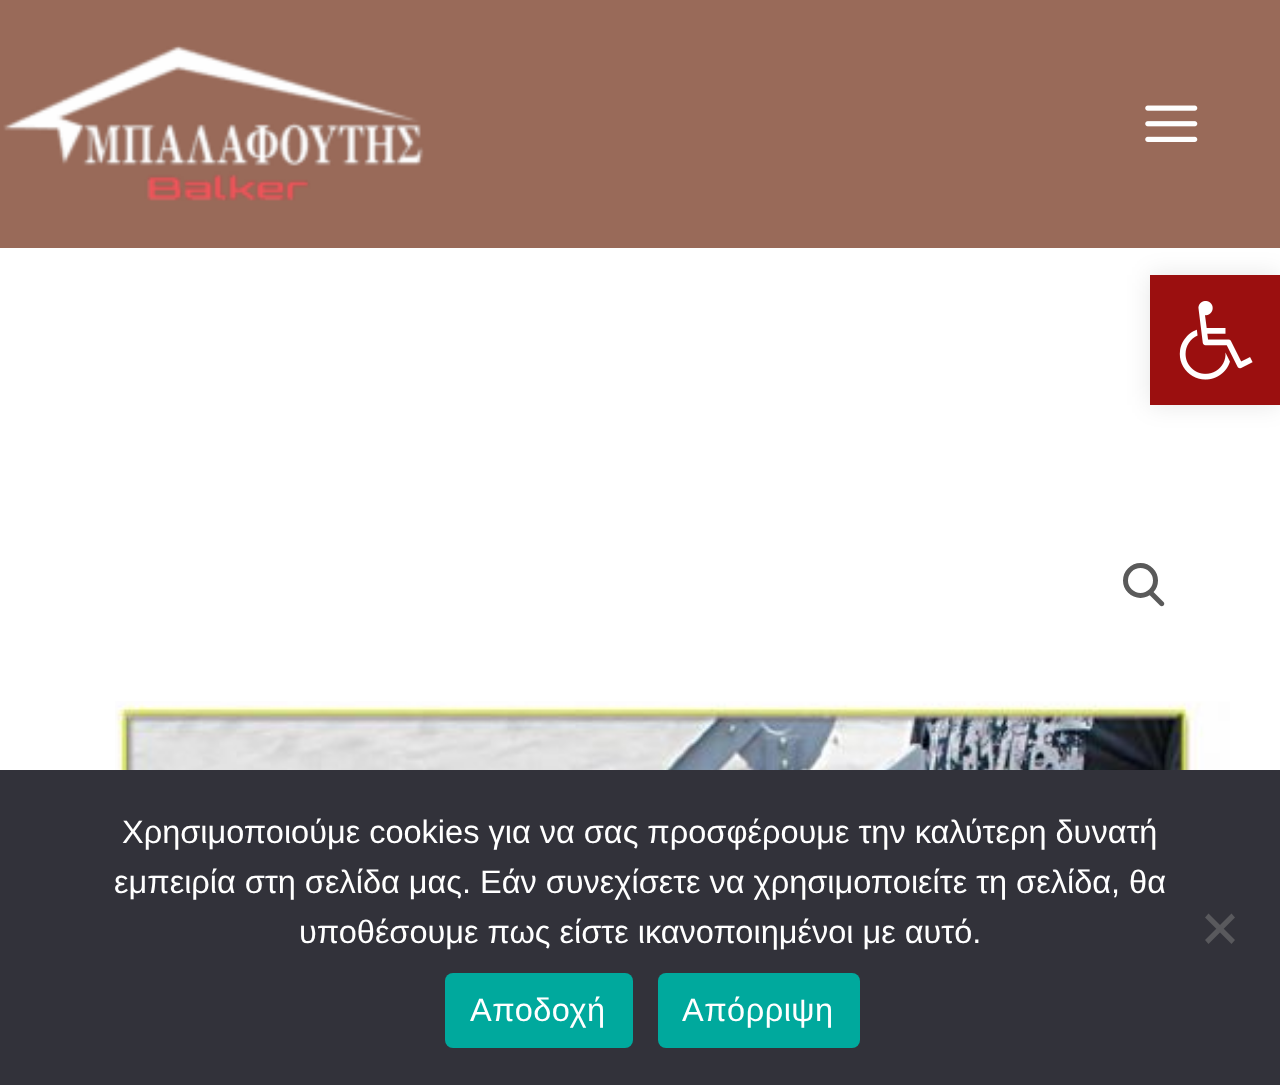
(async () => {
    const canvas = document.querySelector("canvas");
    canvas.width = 1280;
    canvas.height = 1085;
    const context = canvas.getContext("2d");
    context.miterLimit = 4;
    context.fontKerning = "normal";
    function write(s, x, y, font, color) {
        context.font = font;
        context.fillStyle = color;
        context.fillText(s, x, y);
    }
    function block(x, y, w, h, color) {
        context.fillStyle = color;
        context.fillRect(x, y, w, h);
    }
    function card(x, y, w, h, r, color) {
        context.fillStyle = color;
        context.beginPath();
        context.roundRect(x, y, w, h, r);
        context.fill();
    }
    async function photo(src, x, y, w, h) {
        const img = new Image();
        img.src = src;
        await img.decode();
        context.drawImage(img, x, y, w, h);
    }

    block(0, 0, 1280, 1085, "rgb(255, 255, 255)");
    block(0, 0, 1280, 248, "rgb(153, 106, 89)");
    await photo("media/1.png", 3, 45, 421, 156);
    await photo("media/2.png", 1145, 105, 53, 37);
    context.beginPath();
    context.arc(1140.5, 580.5, 15, 0, Math.PI * 2);
    context.strokeStyle = "rgb(90, 90, 90)";
    context.lineWidth = 5;
    context.stroke();
    context.fillStyle = "rgb(90, 90, 90)";
    context.beginPath();
    context.moveTo(1149.5, 591.5);
    context.bezierCurveTo(1150.5, 590.5, 1152, 590.5, 1153, 591.5);
    context.lineTo(1163.5, 602);
    context.bezierCurveTo(1164.5, 603, 1164.5, 604.5, 1163.5, 605.5);
    context.bezierCurveTo(1162.5, 606.5, 1161, 606.5, 1160, 605.5);
    context.lineTo(1149.5, 595);
    context.bezierCurveTo(1148.5, 594, 1148.5, 592.5, 1149.5, 591.5);
    context.closePath();
    context.fill();
    await photo("media/3.png", 115, 701, 1115, 69);
    context.fillStyle = "rgba(0, 0, 0, 0.1)";
    context.filter = "blur(12.5px)";
    context.beginPath();
    context.rect(1150, 275, 130, 130);
    context.fill();
    context.filter = "none";
    block(1150, 275, 130, 130, "rgb(155, 15, 15)");
    await photo("media/4.png", 1179, 301, 74, 79);
    block(0, 770, 1280, 315, "rgb(50, 50, 58)");
    write("Χρησιμοποιούμε cookies για να σας προσφέρουμε την καλύτερη δυνατή", 122, 843, "32.5px Liberation Sans", "rgb(255, 255, 255)");
    write("εμπειρία στη σελίδα μας. Εάν συνεχίσετε να χρησιμοποιείτε τη σελίδα, θα", 114, 893, "32.5px Liberation Sans", "rgb(255, 255, 255)");
    write("υποθέσουμε πως είστε ικανοποιημένοι με αυτό.", 299, 943, "32.5px Liberation Sans", "rgb(255, 255, 255)");
    context.fillStyle = "rgb(89, 89, 93)";
    context.beginPath();
    context.moveTo(1231.5, 913.5);
    context.lineTo(1235, 917.5);
    context.lineTo(1208.5, 944);
    context.lineTo(1205, 940);
    context.closePath();
    context.fill();
    context.beginPath();
    context.moveTo(1205, 917.5);
    context.lineTo(1208.5, 913.5);
    context.lineTo(1235, 940);
    context.lineTo(1231.5, 944);
    context.closePath();
    context.fill();
    card(445, 973, 188, 75, 8, "rgb(0, 169, 157)");
    context.letterSpacing = "0.5px";
    write("Αποδοχή", 470, 1021, "32.5px Liberation Sans", "rgb(255, 255, 255)");
    card(658, 973, 202, 75, 8, "rgb(0, 169, 157)");
    write("Απόρριψη", 682, 1021, "32.5px Liberation Sans", "rgb(255, 255, 255)");
})();
